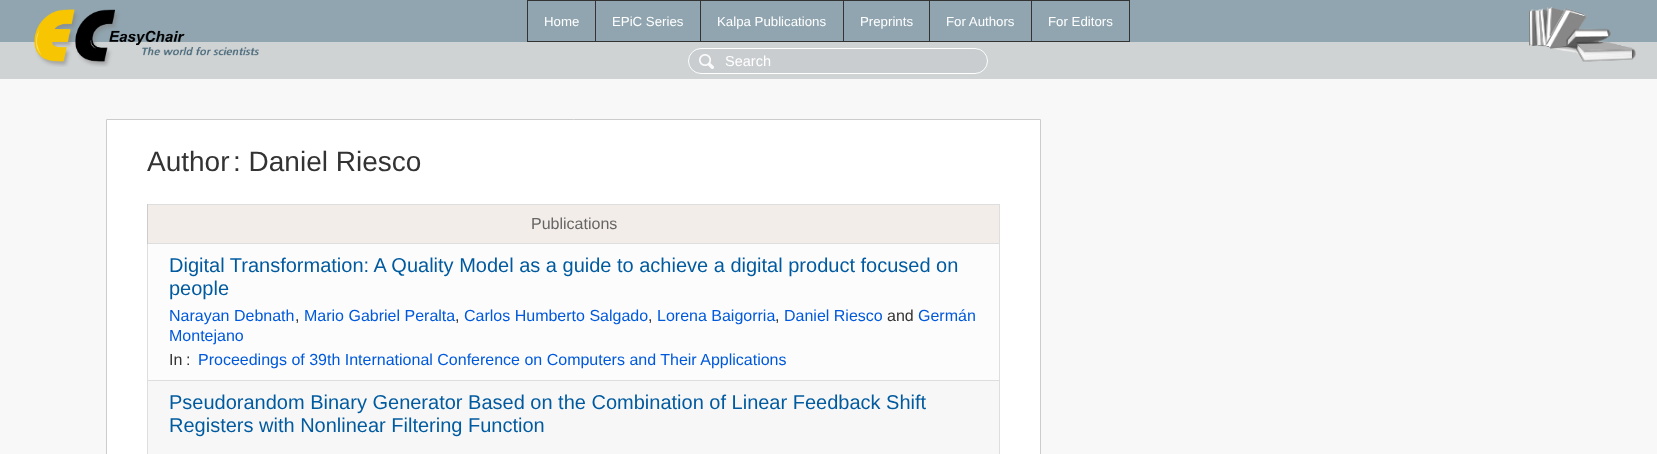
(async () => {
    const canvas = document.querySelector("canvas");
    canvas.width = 1657;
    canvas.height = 454;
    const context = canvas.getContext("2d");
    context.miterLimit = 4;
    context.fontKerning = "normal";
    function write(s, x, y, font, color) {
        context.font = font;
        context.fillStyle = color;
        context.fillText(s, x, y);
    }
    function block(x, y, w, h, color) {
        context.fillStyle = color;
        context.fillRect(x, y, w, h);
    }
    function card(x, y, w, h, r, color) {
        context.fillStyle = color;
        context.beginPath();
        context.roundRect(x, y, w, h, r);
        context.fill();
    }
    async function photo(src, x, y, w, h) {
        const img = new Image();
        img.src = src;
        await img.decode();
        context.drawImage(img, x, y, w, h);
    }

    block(0, 0, 1657, 454, "rgb(144, 165, 176)");
    block(0, 43, 1656, 35, "rgb(208, 211, 212)");
    block(0, 42, 1657, 1, "rgb(208, 211, 212)");
    await photo("media/1.png", 34, 9, 225, 58);
    block(1031, 0, 99, 1, "rgb(51, 51, 51)");
    block(1129, 0, 1, 42, "rgb(51, 51, 51)");
    block(1031, 41, 99, 1, "rgb(51, 51, 51)");
    block(1031, 0, 1, 42, "rgb(51, 51, 51)");
    block(929, 0, 103, 1, "rgb(51, 51, 51)");
    block(929, 41, 103, 1, "rgb(51, 51, 51)");
    block(929, 0, 1, 42, "rgb(51, 51, 51)");
    block(843, 0, 87, 1, "rgb(51, 51, 51)");
    block(843, 41, 87, 1, "rgb(51, 51, 51)");
    block(843, 0, 1, 42, "rgb(51, 51, 51)");
    block(700, 0, 144, 1, "rgb(51, 51, 51)");
    block(700, 41, 144, 1, "rgb(51, 51, 51)");
    block(700, 0, 1, 42, "rgb(51, 51, 51)");
    block(595, 0, 106, 1, "rgb(51, 51, 51)");
    block(595, 41, 106, 1, "rgb(51, 51, 51)");
    block(595, 0, 1, 42, "rgb(51, 51, 51)");
    block(527, 0, 69, 1, "rgb(51, 51, 51)");
    block(527, 41, 69, 1, "rgb(51, 51, 51)");
    block(527, 0, 1, 42, "rgb(51, 51, 51)");
    write("Home", 544, 26, "13.25px Liberation Sans", "rgb(255, 255, 255)");
    write("EPiC Series", 612, 26, "13.25px Liberation Sans", "rgb(255, 255, 255)");
    write("Kalpa Publications", 717, 26, "13.25px Liberation Sans", "rgb(255, 255, 255)");
    write("Preprints", 860, 26, "13.25px Liberation Sans", "rgb(255, 255, 255)");
    write("For Authors", 946, 26, "13.25px Liberation Sans", "rgb(255, 255, 255)");
    write("For Editors", 1048, 26, "13.25px Liberation Sans", "rgb(255, 255, 255)");
    await photo("media/2.png", 1529, 6, 107, 56);
    block(1656, 42, 1, 37, "rgb(208, 211, 212)");
    block(0, 78, 1657, 1, "rgb(208, 211, 212)");
    card(688, 48, 300, 26, 13, "rgb(201, 205, 208)");
    await photo("media/3.png", 699, 54, 15, 15);
    context.beginPath();
    context.roundRect(688.5, 48.5, 299, 25, 12.5);
    context.strokeStyle = "rgb(255, 255, 255)";
    context.stroke();
    write("Search", 725, 66, "14.5px Liberation Sans", "rgb(255, 255, 255)");
    block(0, 79, 1657, 375, "rgb(248, 248, 248)");
    context.fillStyle = "rgb(255, 255, 255)";
    context.beginPath();
    context.rect(106.5, 119.5, 934, 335);
    context.fill();
    context.strokeStyle = "rgb(204, 204, 204)";
    context.stroke();
    write("Author", 147, 171, "28px Liberation Sans", "rgb(51, 51, 51)");
    write(": Daniel Riesco", 233, 171, "28px Liberation Sans", "rgb(51, 51, 51)");
    block(147, 204, 853, 1, "rgb(222, 222, 222)");
    block(999, 204, 1, 250, "rgb(222, 222, 222)");
    block(147, 244, 1, 210, "rgb(222, 222, 222)");
    block(148, 205, 851, 38, "rgb(242, 237, 233)");
    block(147, 243, 853, 1, "rgb(222, 222, 222)");
    block(147, 204, 1, 40, "rgb(204, 204, 204)");
    write("Publications", 531, 229, "16px Liberation Sans", "rgb(102, 102, 102)");
    block(148, 244, 851, 136, "rgb(252, 252, 252)");
    block(147, 380, 853, 1, "rgb(222, 222, 222)");
    write("Digital Transformation: A Quality Model as a guide to achieve a digital product focused on", 169, 272, "20px Liberation Sans", "rgb(0, 90, 159)");
    write("people", 169, 295, "20px Liberation Sans", "rgb(0, 90, 159)");
    write("Narayan Debnath", 169, 321, "16px Liberation Sans", "rgb(0, 89, 219)");
    write(",", 295, 321, "16px Liberation Sans", "rgb(51, 51, 51)");
    write("Mario Gabriel Peralta", 304, 321, "16px Liberation Sans", "rgb(0, 89, 219)");
    write(",", 455, 321, "16px Liberation Sans", "rgb(51, 51, 51)");
    write("Carlos Humberto Salgado", 464, 321, "16px Liberation Sans", "rgb(0, 89, 219)");
    write(",", 648, 321, "16px Liberation Sans", "rgb(51, 51, 51)");
    write("Lorena Baigorria", 657, 321, "16px Liberation Sans", "rgb(0, 89, 219)");
    write(",", 775, 321, "16px Liberation Sans", "rgb(51, 51, 51)");
    write("Daniel Riesco", 784, 321, "16px Liberation Sans", "rgb(0, 89, 219)");
    write("and", 887, 321, "16px Liberation Sans", "rgb(51, 51, 51)");
    write("Germán", 918, 321, "16px Liberation Sans", "rgb(0, 89, 219)");
    write("Montejano", 169, 341, "16px Liberation Sans", "rgb(0, 89, 219)");
    write("In", 169, 365, "16px Liberation Sans", "rgb(51, 51, 51)");
    write(":", 186, 365, "16px Liberation Sans", "rgb(51, 51, 51)");
    write("Proceedings of 39th International Conference on Computers and Their Applications", 198, 365, "16px Liberation Sans", "rgb(0, 89, 219)");
    block(148, 381, 851, 73, "rgb(247, 247, 247)");
    write("Pseudorandom Binary Generator Based on the Combination of Linear Feedback Shift", 169, 409, "20px Liberation Sans", "rgb(0, 90, 159)");
    write("Registers with Nonlinear Filtering Function", 169, 432, "20px Liberation Sans", "rgb(0, 90, 159)");
})();
